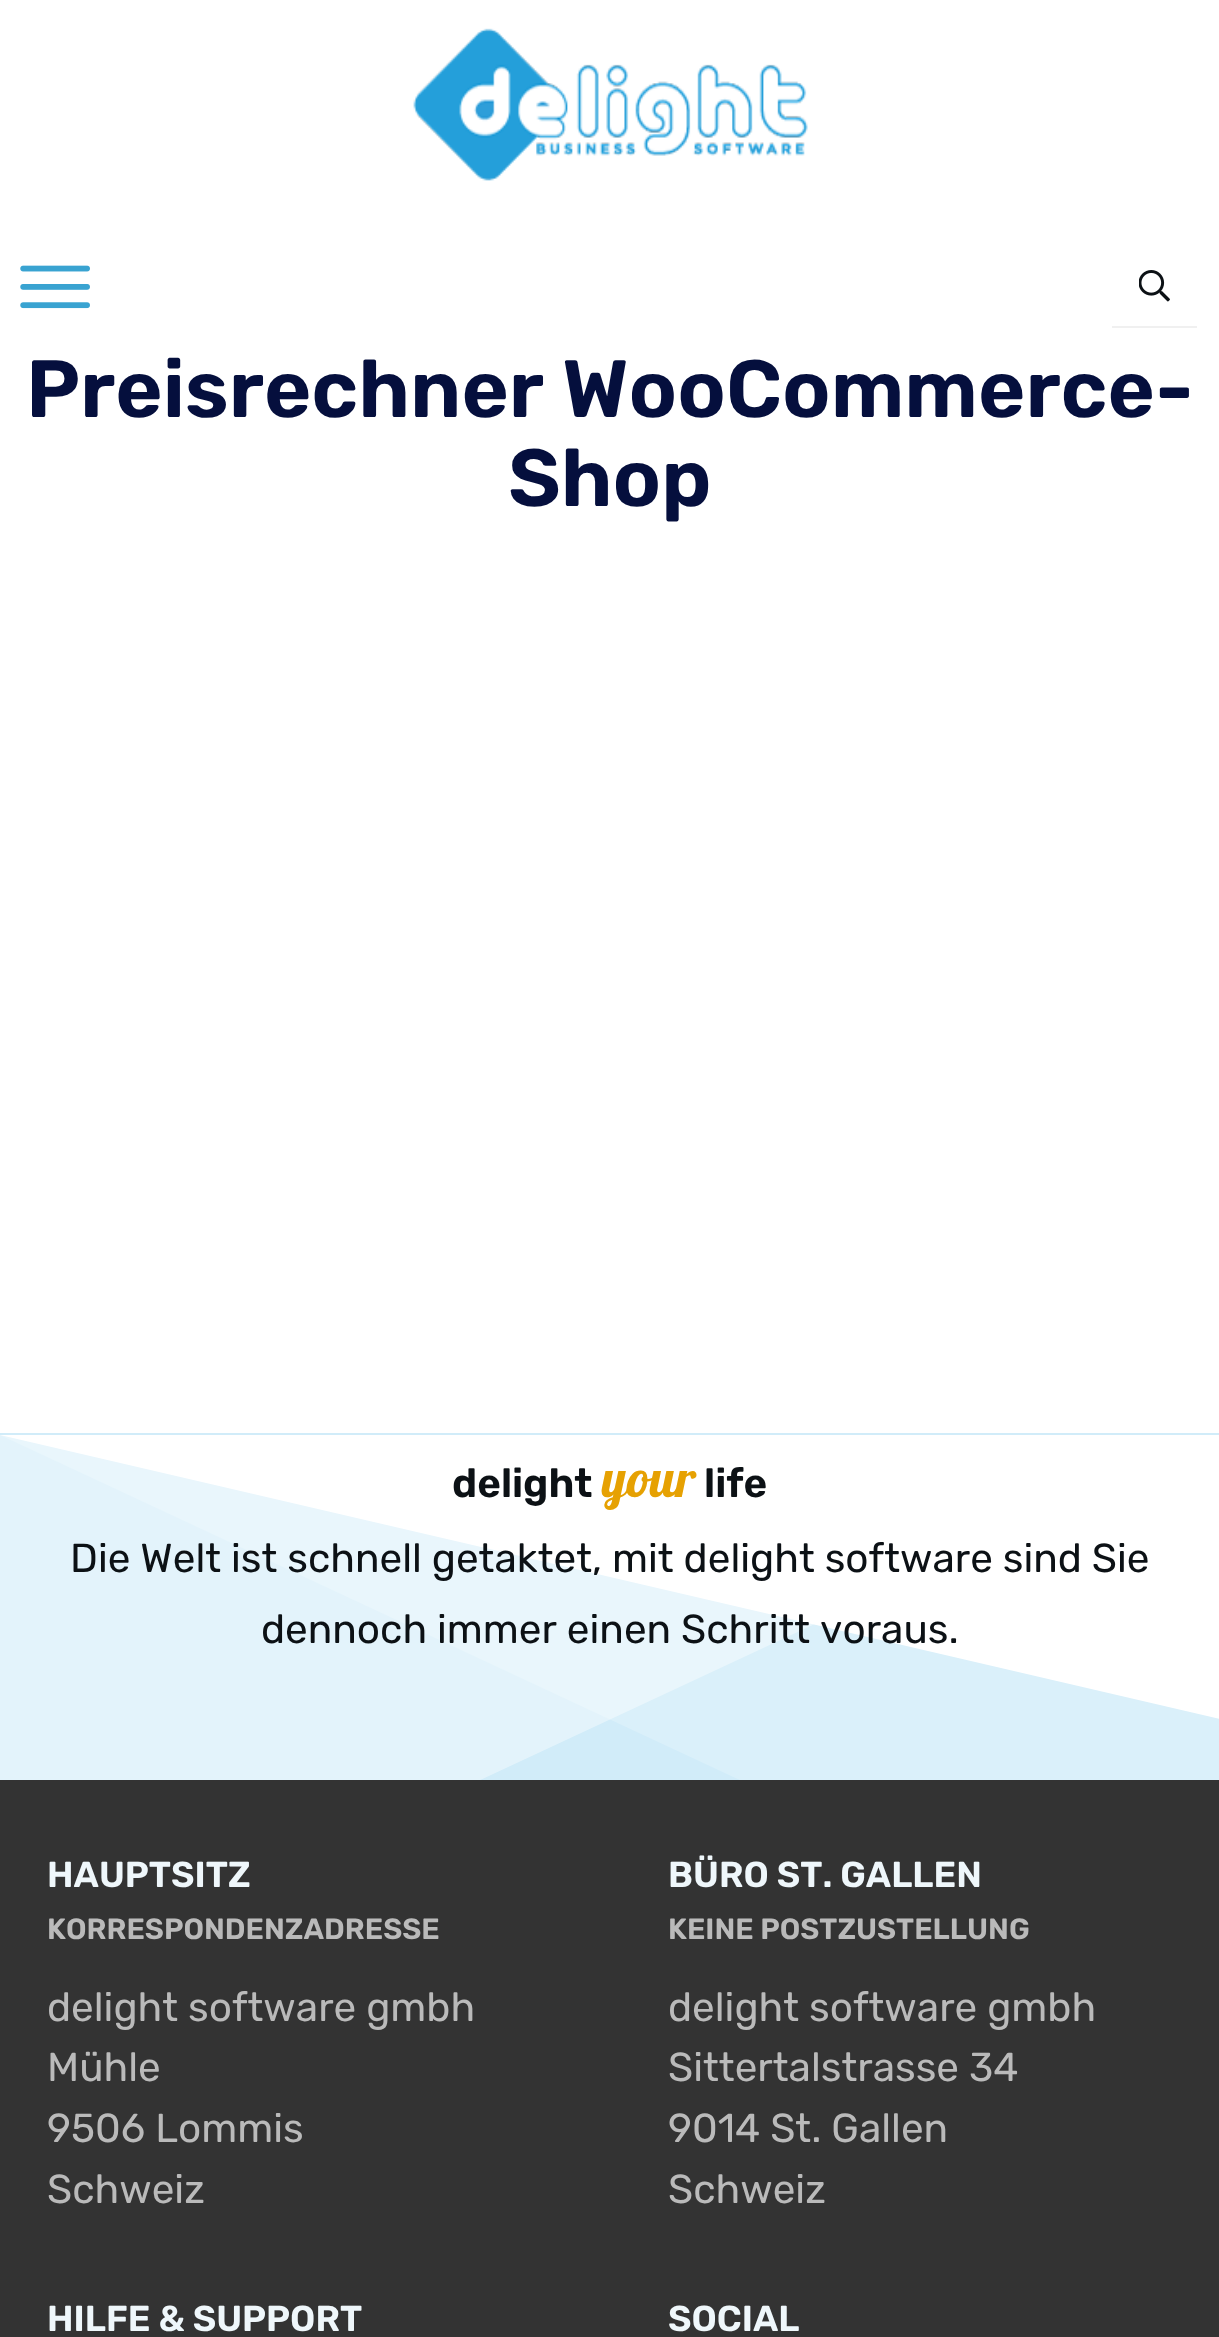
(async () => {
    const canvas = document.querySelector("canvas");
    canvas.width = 1219;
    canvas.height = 2337;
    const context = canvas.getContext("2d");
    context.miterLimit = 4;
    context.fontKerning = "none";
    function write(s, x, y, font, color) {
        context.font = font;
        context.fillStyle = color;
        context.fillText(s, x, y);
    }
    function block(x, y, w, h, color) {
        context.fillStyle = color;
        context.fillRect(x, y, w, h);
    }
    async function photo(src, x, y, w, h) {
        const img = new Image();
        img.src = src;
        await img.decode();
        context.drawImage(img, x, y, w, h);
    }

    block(0, 0, 1219, 2337, "rgb(255, 255, 255)");
    await photo("media/1.png", 413, 28, 395, 153);
    await photo("media/2.png", 20, 265, 70, 44);
    block(1112, 326, 85, 2, "rgb(240, 240, 240)");
    await photo("media/3.png", 1139, 270, 31, 32);
    write("Preisrechner WooCommerce-", 26, 417, "600 81px Rubik", "rgb(5, 15, 61)");
    write("Shop", 508, 506, "600 81px Rubik", "rgb(5, 15, 61)");
    block(0, 1433, 1219, 347, "rgb(209, 236, 249)");
    context.save();
    context.beginPath();
    context.rect(0, 1433, 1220, 347);
    context.clip();
    context.fillStyle = "rgb(218, 240, 250)";
    context.beginPath();
    context.moveTo(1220, 2004);
    context.lineTo(0, 1435);
    context.lineTo(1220, 1435);
    context.closePath();
    context.fill();
    context.fillStyle = "rgba(255, 255, 255, 0.4)";
    context.beginPath();
    context.moveTo(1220, 1435);
    context.lineTo(0, 2004);
    context.lineTo(0, 1435);
    context.closePath();
    context.fill();
    context.restore();
    context.fillStyle = "rgb(255, 255, 255)";
    context.beginPath();
    context.moveTo(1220, 1719);
    context.lineTo(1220, 1435);
    context.lineTo(0, 1435);
    context.closePath();
    context.fill();
    write("delight", 452, 1497, "600 40.5px Rubik", "rgb(12, 17, 21)");
    write("your", 602, 1497, "52px Lobster", "rgb(230, 161, 2)");
    write("life", 704, 1497, "600 40.5px Rubik", "rgb(12, 17, 21)");
    write("Die Welt ist schnell getaktet, mit delight software sind Sie", 70, 1572, "40.5px Rubik", "rgb(12, 17, 21)");
    write("dennoch immer einen Schritt voraus.", 261, 1643, "40.5px Rubik", "rgb(12, 17, 21)");
    block(0, 1780, 1219, 557, "rgb(51, 51, 51)");
    write("HAUPTSITZ", 47, 1887, "600 36px Rubik", "rgb(239, 247, 251)");
    write("KORRESPONDENZADRESSE", 47, 1939, "600 29.25px Rubik", "rgb(186, 186, 186)");
    write("delight software gmbh", 47, 2021, "40.5px Rubik", "rgb(186, 186, 186)");
    write("Mühle", 47, 2081, "40.5px Rubik", "rgb(186, 186, 186)");
    write("9506 Lommis", 47, 2142, "40.5px Rubik", "rgb(186, 186, 186)");
    write("Schweiz", 47, 2203, "40.5px Rubik", "rgb(186, 186, 186)");
    write("BÜRO ST. GALLEN", 668, 1887, "600 36px Rubik", "rgb(239, 247, 251)");
    write("KEINE POSTZUSTELLUNG", 668, 1939, "600 29.25px Rubik", "rgb(186, 186, 186)");
    write("delight software gmbh", 668, 2021, "40.5px Rubik", "rgb(186, 186, 186)");
    write("Sittertalstrasse 34", 668, 2081, "40.5px Rubik", "rgb(186, 186, 186)");
    write("9014 St. Gallen", 668, 2142, "40.5px Rubik", "rgb(186, 186, 186)");
    write("Schweiz", 668, 2203, "40.5px Rubik", "rgb(186, 186, 186)");
    write("HILFE & SUPPORT", 47, 2331, "600 36px Rubik", "rgb(239, 247, 251)");
    write("SOCIAL", 668, 2331, "600 36px Rubik", "rgb(239, 247, 251)");
})();
